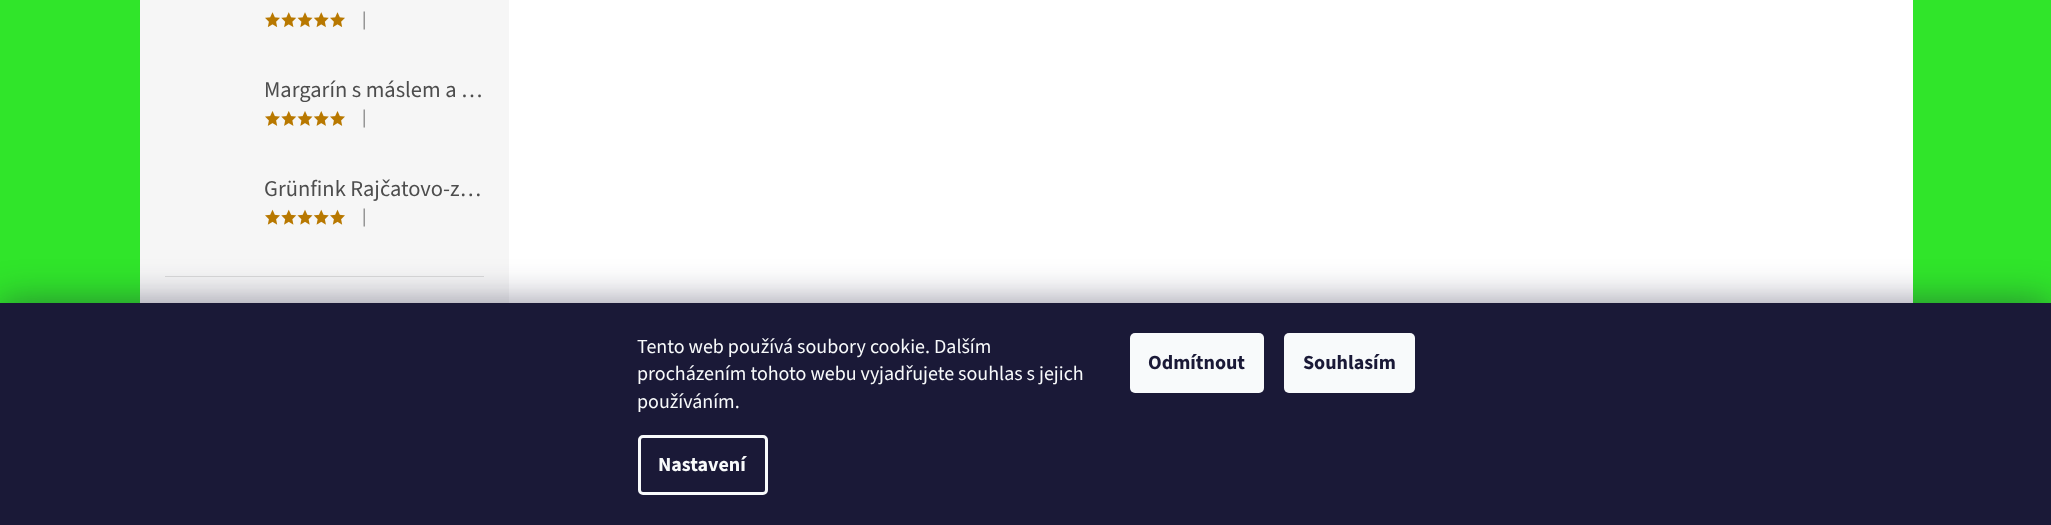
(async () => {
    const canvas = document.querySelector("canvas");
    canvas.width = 2051;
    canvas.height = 525;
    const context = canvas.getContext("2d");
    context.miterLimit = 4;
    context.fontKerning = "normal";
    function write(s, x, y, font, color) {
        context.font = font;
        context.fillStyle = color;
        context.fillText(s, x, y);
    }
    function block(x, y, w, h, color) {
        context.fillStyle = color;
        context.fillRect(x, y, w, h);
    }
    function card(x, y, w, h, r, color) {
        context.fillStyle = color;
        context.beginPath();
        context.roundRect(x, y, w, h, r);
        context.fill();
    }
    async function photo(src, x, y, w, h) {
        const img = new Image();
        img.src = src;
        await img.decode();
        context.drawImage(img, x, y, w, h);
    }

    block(0, 0, 2051, 525, "rgb(48, 229, 42)");
    block(509, 0, 1404, 303, "rgb(255, 255, 255)");
    block(140, 0, 369, 303, "rgb(246, 246, 246)");
    block(165, 276, 319, 1, "rgb(218, 218, 218)");
    await photo("media/1.png", 265, 12, 15, 15);
    await photo("media/2.png", 281, 12, 16, 16);
    await photo("media/3.png", 297, 12, 16, 16);
    await photo("media/4.png", 313, 12, 16, 16);
    await photo("media/1.png", 330, 12, 15, 15);
    write("|", 362, 25, "18px 'Source Sans 3'", "rgb(112, 112, 112)");
    write("Margarín s máslem a …", 264, 97, "22.5px 'Source Sans 3'", "rgb(77, 77, 77)");
    await photo("media/5.png", 265, 111, 15, 15);
    await photo("media/6.png", 281, 111, 16, 15);
    await photo("media/7.png", 297, 111, 16, 15);
    await photo("media/8.png", 313, 111, 16, 15);
    await photo("media/5.png", 330, 111, 15, 15);
    write("|", 362, 123, "18px 'Source Sans 3'", "rgb(112, 112, 112)");
    write("Grünfink Rajčatovo-z…", 264, 196, "22.5px 'Source Sans 3'", "rgb(77, 77, 77)");
    await photo("media/9.png", 265, 209, 15, 16);
    await photo("media/10.png", 281, 209, 16, 16);
    await photo("media/11.png", 297, 209, 16, 16);
    await photo("media/12.png", 313, 209, 16, 16);
    await photo("media/9.png", 330, 209, 15, 16);
    write("|", 362, 222, "18px 'Source Sans 3'", "rgb(112, 112, 112)");
    context.fillStyle = "rgba(27, 25, 57, 0.5)";
    context.filter = "blur(19px)";
    context.beginPath();
    context.rect(0, 303, 2051, 222);
    context.fill();
    context.filter = "none";
    block(0, 303, 2051, 222, "rgb(26, 25, 55)");
    write("Tento web používá soubory cookie. Dalším", 637, 353, "20px 'Source Sans 3'", "rgb(248, 250, 251)");
    write("procházením tohoto webu vyjadřujete souhlas s jejich", 637, 380, "20px 'Source Sans 3'", "rgb(248, 250, 251)");
    write("používáním.", 637, 408, "20px 'Source Sans 3'", "rgb(248, 250, 251)");
    context.beginPath();
    context.roundRect(639.5, 436.5, 127, 57, 3.5);
    context.strokeStyle = "rgb(248, 250, 251)";
    context.lineWidth = 3;
    context.stroke();
    write("Nastavení", 658, 471, "bold 20px 'Source Sans 3'", "rgb(248, 250, 251)");
    card(1130, 333, 134, 60, 5, "rgb(248, 250, 251)");
    write("Odmítnout", 1148, 369, "bold 20px 'Source Sans 3'", "rgb(26, 25, 55)");
    card(1284, 333, 131, 60, 5, "rgb(248, 250, 251)");
    write("Souhlasím", 1303, 369, "bold 20px 'Source Sans 3'", "rgb(26, 25, 55)");
})();
